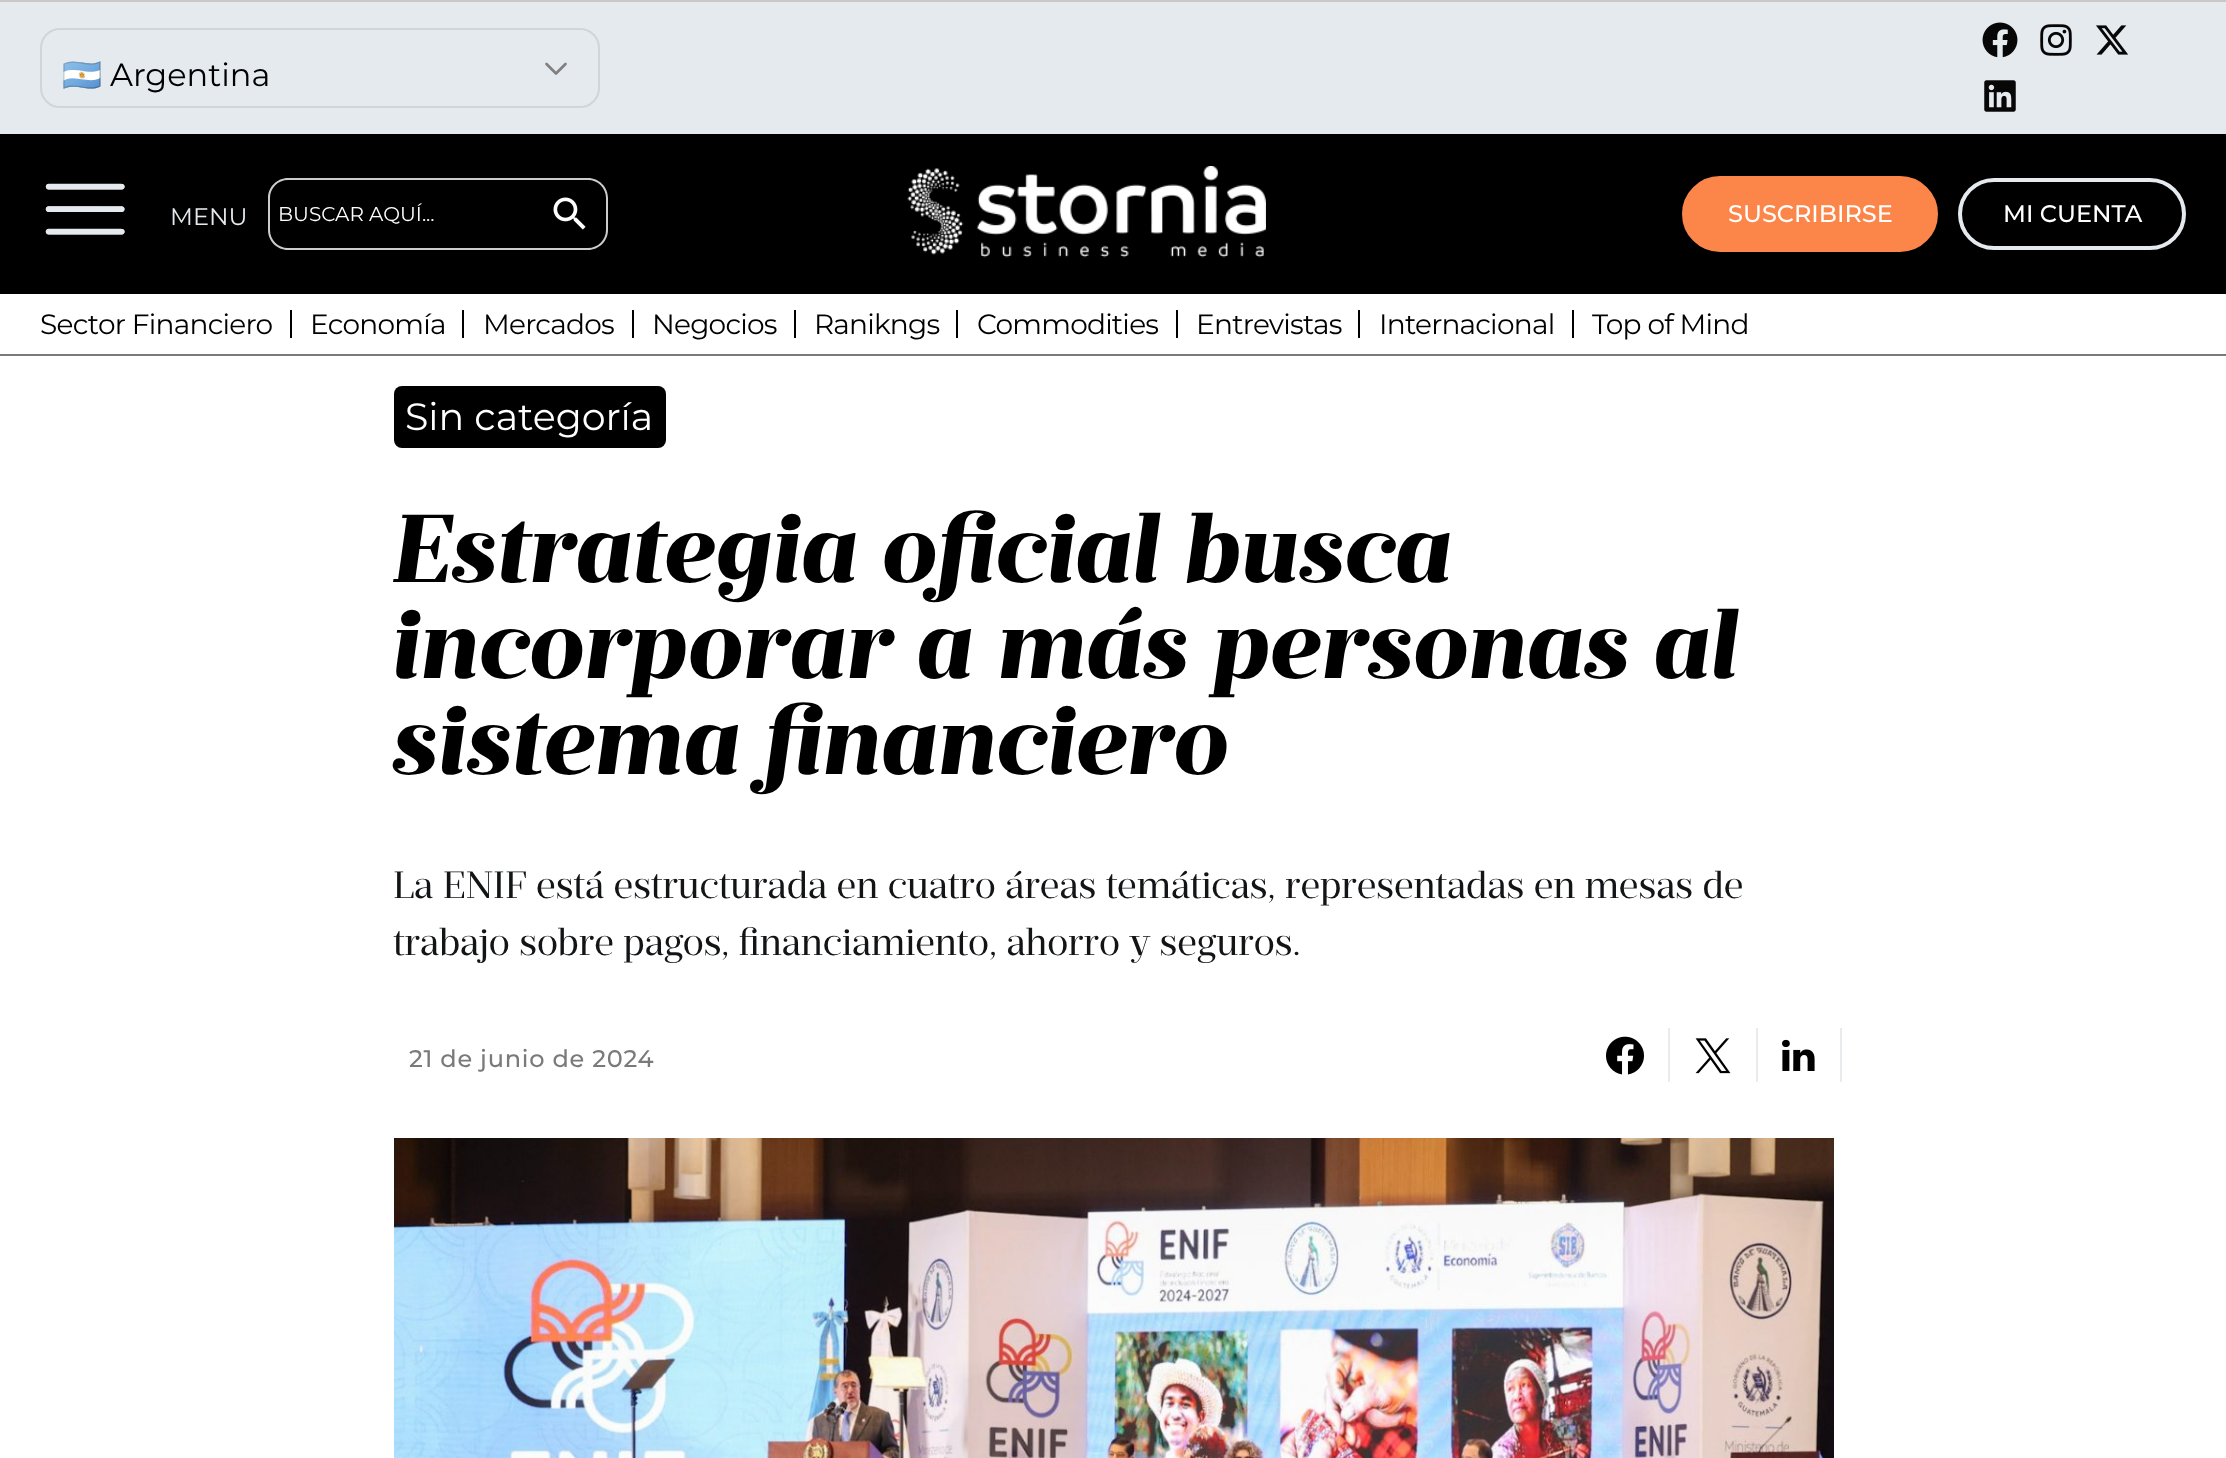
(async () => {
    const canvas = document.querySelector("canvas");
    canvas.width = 2226;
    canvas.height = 1458;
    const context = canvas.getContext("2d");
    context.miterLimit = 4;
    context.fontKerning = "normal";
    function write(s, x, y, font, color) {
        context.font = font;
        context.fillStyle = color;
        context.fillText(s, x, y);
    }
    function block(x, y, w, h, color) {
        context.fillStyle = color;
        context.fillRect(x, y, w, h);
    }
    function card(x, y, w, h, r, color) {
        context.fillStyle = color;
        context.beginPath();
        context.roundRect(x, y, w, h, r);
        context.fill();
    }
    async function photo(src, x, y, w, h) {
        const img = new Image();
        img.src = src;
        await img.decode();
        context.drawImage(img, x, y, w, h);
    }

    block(0, 0, 2226, 1458, "rgb(255, 255, 255)");
    block(0, 2, 2226, 132, "rgb(229, 234, 239)");
    block(0, 0, 2226, 2, "rgb(201, 201, 201)");
    context.beginPath();
    context.moveTo(565.5, 64);
    context.lineTo(556, 73.5);
    context.lineTo(546.5, 64);
    context.strokeStyle = "rgb(128, 128, 128)";
    context.lineWidth = 2.7;
    context.lineCap = "round";
    context.lineJoin = "round";
    context.stroke();
    context.beginPath();
    context.roundRect(41, 29, 558, 78, 19);
    context.strokeStyle = "rgb(209, 213, 219)";
    context.lineWidth = 2;
    context.lineJoin = "miter";
    context.stroke();
    write("🇦🇷", 62, 86, "32px Noto Color Emoji", "rgb(0, 0, 0)");
    write("Argentina", 110, 86, "32px Montserrat", "rgb(0, 0, 0)");
    await photo("media/1.png", 1982, 22, 36, 36);
    await photo("media/2.png", 2040, 24, 32, 32);
    await photo("media/3.png", 2096, 25, 33, 30);
    await photo("media/4.png", 1984, 80, 32, 32);
    block(0, 134, 2226, 160, "rgb(0, 0, 0)");
    await photo("media/5.png", 45, 183, 80, 52);
    write("MENU", 170, 225, "24px Montserrat", "rgb(229, 234, 239)");
    context.fillStyle = "rgb(204, 204, 204)";
    context.beginPath();
    context.moveTo(288, 178);
    context.lineTo(536, 178);
    context.lineTo(536, 250);
    context.lineTo(288, 250);
    context.bezierCurveTo(277, 250, 268, 241, 268, 230);
    context.lineTo(268, 198);
    context.bezierCurveTo(268, 187, 277, 178, 288, 178);
    context.closePath();
    context.moveTo(288, 180);
    context.lineTo(536, 180);
    context.lineTo(536, 248);
    context.lineTo(288, 248);
    context.bezierCurveTo(278, 248, 270, 240, 270, 230);
    context.lineTo(270, 198);
    context.bezierCurveTo(270, 188, 278, 180, 288, 180);
    context.closePath();
    context.fill("evenodd");
    write("BUSCAR AQUÍ...", 278, 221, "20px Montserrat", "rgb(255, 255, 255)");
    context.fillStyle = "rgb(204, 204, 204)";
    context.beginPath();
    context.moveTo(536, 178);
    context.lineTo(588, 178);
    context.bezierCurveTo(599, 178, 608, 187, 608, 198);
    context.lineTo(608, 230);
    context.bezierCurveTo(608, 241, 599, 250, 588, 250);
    context.lineTo(536, 250);
    context.closePath();
    context.moveTo(536, 180);
    context.lineTo(588, 180);
    context.bezierCurveTo(598, 180, 606, 188, 606, 198);
    context.lineTo(606, 230);
    context.bezierCurveTo(606, 240, 598, 248, 588, 248);
    context.lineTo(536, 248);
    context.closePath();
    context.fill("evenodd");
    await photo("media/6.png", 553, 197, 33, 33);
    await photo("media/7.png", 907, 166, 359, 92);
    context.fillStyle = "rgb(252, 133, 73)";
    context.beginPath();
    context.roundRect(1685, 179, 250, 70, 35);
    context.fill();
    context.strokeStyle = "rgb(252, 133, 73)";
    context.lineWidth = 6;
    context.stroke();
    write("SUSCRIBIRSE", 1728, 222, "500 24px Montserrat", "rgb(255, 255, 255)");
    context.beginPath();
    context.roundRect(1960, 180, 224, 68, 34);
    context.strokeStyle = "rgb(229, 234, 239)";
    context.lineWidth = 4;
    context.stroke();
    write("MI CUENTA", 2003, 222, "500 24px Montserrat", "rgb(255, 255, 255)");
    block(0, 354, 2226, 2, "rgb(122, 122, 122)");
    context.letterSpacing = "-0.75px";
    write("Sector Financiero", 40, 334, "28px Montserrat", "rgb(0, 0, 0)");
    block(290, 310, 2, 28, "rgb(0, 0, 0)");
    write("Economía", 310, 334, "28px Montserrat", "rgb(0, 0, 0)");
    block(462, 310, 2, 28, "rgb(0, 0, 0)");
    write("Mercados", 483, 334, "28px Montserrat", "rgb(0, 0, 0)");
    block(632, 310, 2, 28, "rgb(0, 0, 0)");
    write("Negocios", 652, 334, "28px Montserrat", "rgb(0, 0, 0)");
    block(794, 310, 2, 28, "rgb(0, 0, 0)");
    write("Ranikngs", 814, 334, "28px Montserrat", "rgb(0, 0, 0)");
    block(956, 310, 2, 28, "rgb(0, 0, 0)");
    write("Commodities", 977, 334, "28px Montserrat", "rgb(0, 0, 0)");
    block(1176, 310, 2, 28, "rgb(0, 0, 0)");
    write("Entrevistas", 1196, 334, "28px Montserrat", "rgb(0, 0, 0)");
    block(1358, 310, 2, 28, "rgb(0, 0, 0)");
    write("Internacional", 1379, 334, "28px Montserrat", "rgb(0, 0, 0)");
    block(1572, 310, 2, 28, "rgb(0, 0, 0)");
    write("Top of Mind", 1592, 334, "28px Montserrat", "rgb(0, 0, 0)");
    card(394, 386, 272, 62, 8, "rgb(0, 0, 0)");
    context.letterSpacing = "0px";
    write("Sin categoría", 405, 430, "38px Montserrat", "rgb(255, 255, 255)");
    write("Estrategia oficial busca", 393, 582, "italic 800 96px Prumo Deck", "rgb(0, 0, 0)");
    write("incorporar a más personas al", 393, 678, "italic 800 96px Prumo Deck", "rgb(0, 0, 0)");
    write("sistema financiero", 393, 774, "italic 800 96px Prumo Deck", "rgb(0, 0, 0)");
    write("La ENIF está estructurada en cuatro áreas temáticas, representadas en mesas de", 393, 898, "38px Prumo Deck", "rgb(18, 20, 22)");
    write("trabajo sobre pagos, financiamiento, ahorro y seguros.", 393, 955, "38px Prumo Deck", "rgb(18, 20, 22)");
    context.letterSpacing = "0.75px";
    write("21 de junio de 2024", 409, 1067, "500 24px Montserrat", "rgb(122, 122, 122)");
    block(1668, 1028, 2, 54, "rgb(233, 236, 239)");
    await photo("media/8.png", 1606, 1036, 38, 39);
    block(1756, 1028, 2, 54, "rgb(233, 236, 239)");
    await photo("media/9.png", 1695, 1038, 36, 36);
    block(1840, 1028, 2, 54, "rgb(233, 236, 239)");
    await photo("media/10.png", 1782, 1039, 33, 32);
    await photo("media/11.png", 394, 1138, 1440, 320);
})();
